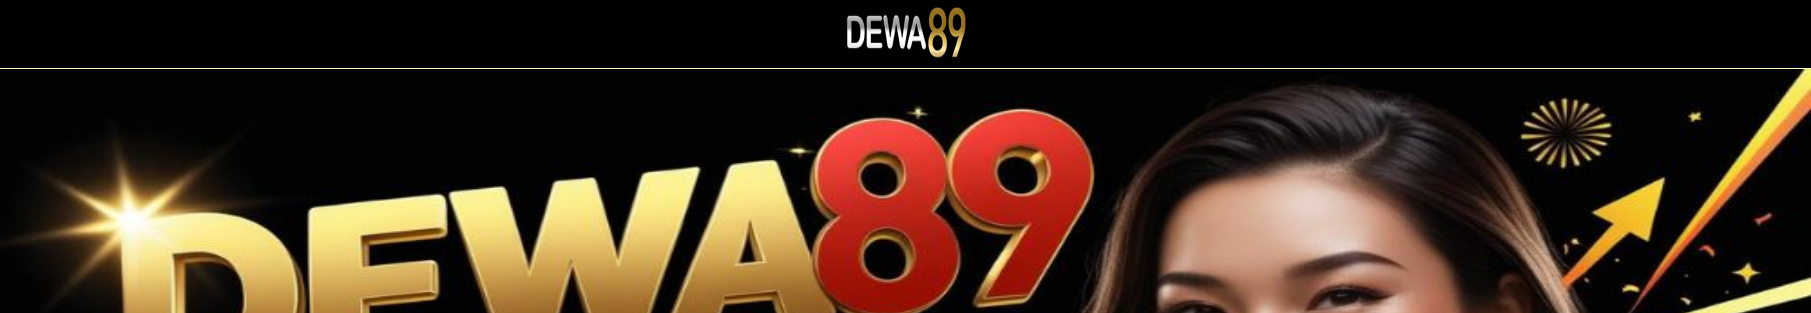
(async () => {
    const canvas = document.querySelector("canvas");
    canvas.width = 1811;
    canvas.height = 313;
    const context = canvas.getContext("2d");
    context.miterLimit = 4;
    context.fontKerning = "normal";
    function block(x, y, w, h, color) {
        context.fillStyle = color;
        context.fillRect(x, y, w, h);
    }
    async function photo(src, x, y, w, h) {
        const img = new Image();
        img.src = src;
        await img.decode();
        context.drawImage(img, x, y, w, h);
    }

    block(0, 0, 1811, 313, "rgb(255, 255, 255)");
    block(0, 0, 1811, 68, "rgb(0, 0, 0)");
    block(0, 68, 1811, 1, "rgb(255, 250, 173)");
    await photo("media/1.png", 847, 7, 119, 51);
    await photo("media/2.png", 0, 69, 1811, 244);
})();
